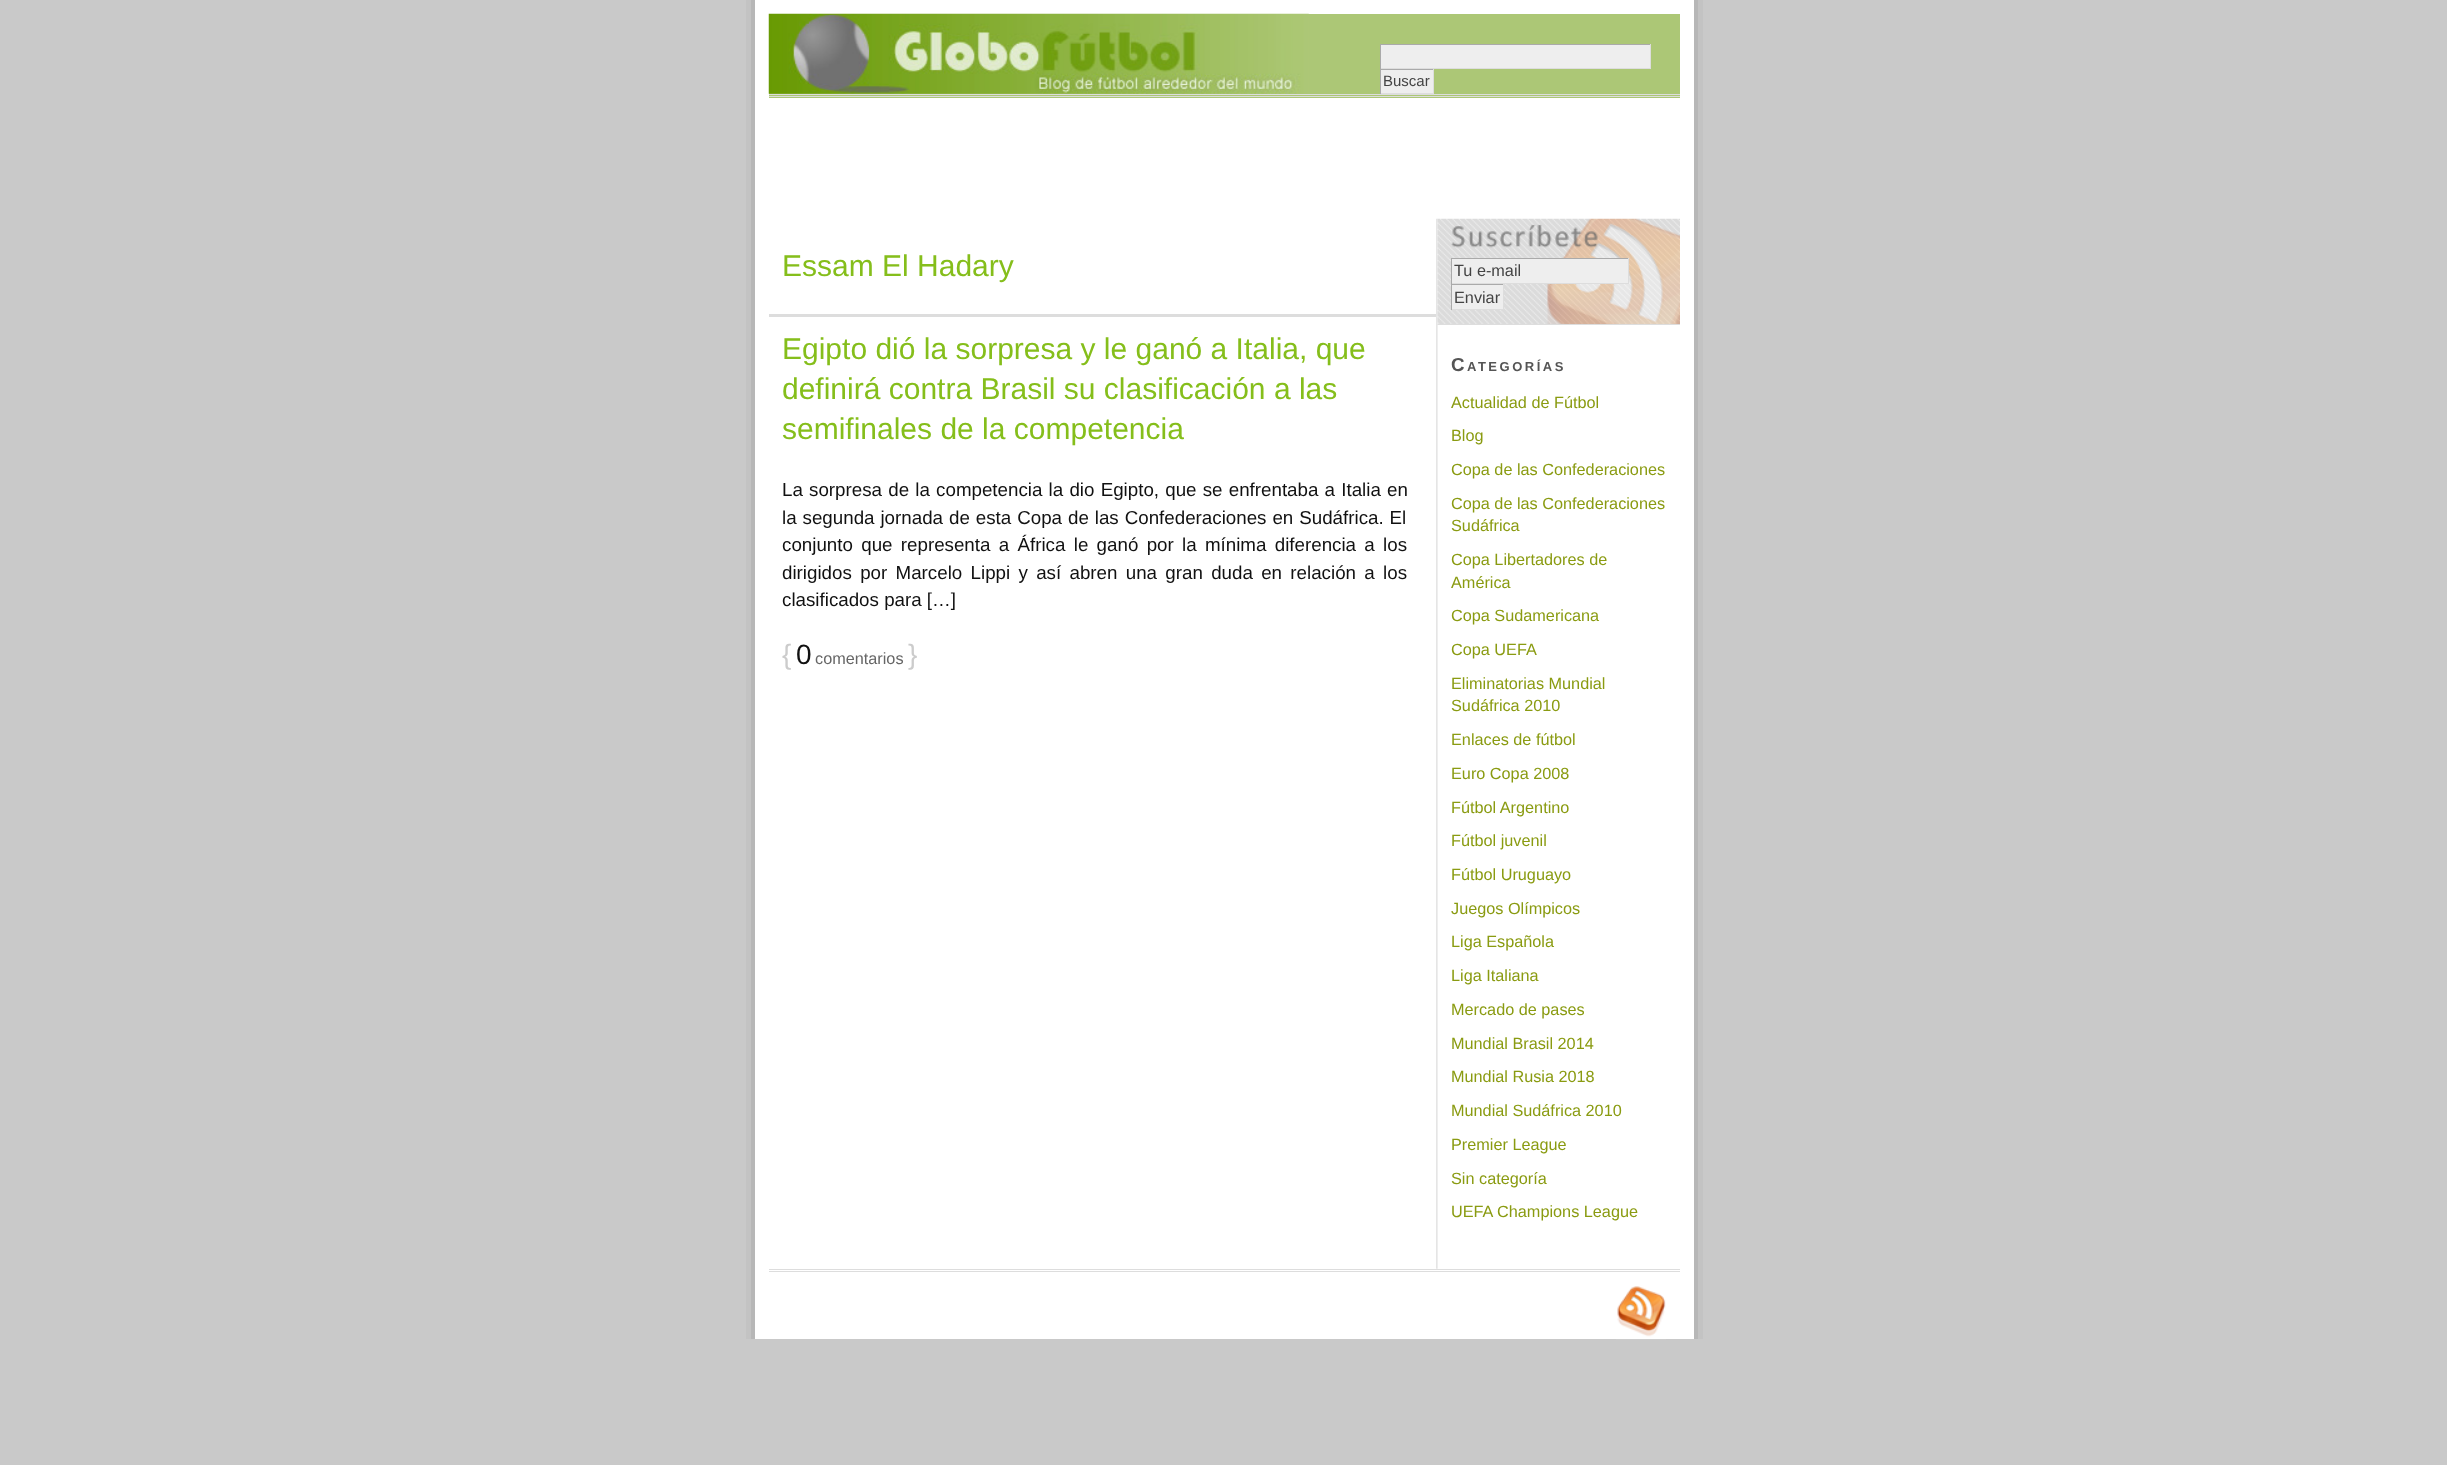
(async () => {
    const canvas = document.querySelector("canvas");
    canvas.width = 2447;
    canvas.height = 1465;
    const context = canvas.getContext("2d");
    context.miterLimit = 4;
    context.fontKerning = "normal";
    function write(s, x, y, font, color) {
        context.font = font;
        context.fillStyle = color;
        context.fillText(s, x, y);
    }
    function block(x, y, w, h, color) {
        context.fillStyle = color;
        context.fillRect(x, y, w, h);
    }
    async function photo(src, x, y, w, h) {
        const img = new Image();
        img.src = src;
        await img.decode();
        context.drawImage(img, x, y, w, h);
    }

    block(0, 0, 2447, 1465, "rgb(201, 201, 201)");
    block(751, 0, 947, 1339, "rgb(183, 183, 183)");
    block(1698, 0, 5, 1339, "rgb(195, 195, 195)");
    block(746, 0, 5, 1339, "rgb(195, 195, 195)");
    block(755, 0, 939, 1339, "rgb(255, 255, 255)");
    block(769, 14, 911, 84, "rgb(172, 199, 118)");
    await photo("media/1.png", 768, 13, 541, 81);
    block(769, 94, 911, 1, "rgb(221, 221, 221)");
    block(769, 96, 911, 1, "rgb(221, 221, 221)");
    block(1381, 45, 269, 23, "rgb(238, 238, 238)");
    block(1380, 44, 271, 1, "rgb(170, 170, 170)");
    block(1650, 44, 1, 25, "rgb(221, 221, 221)");
    block(1380, 68, 271, 1, "rgb(221, 221, 221)");
    block(1380, 44, 1, 25, "rgb(170, 170, 170)");
    block(1381, 70, 52, 23, "rgb(238, 238, 238)");
    block(1380, 69, 54, 1, "rgb(170, 170, 170)");
    block(1433, 69, 1, 25, "rgb(221, 221, 221)");
    block(1380, 93, 54, 1, "rgb(221, 221, 221)");
    block(1380, 69, 1, 25, "rgb(170, 170, 170)");
    write("Buscar", 1383, 86, "15px Liberation Sans", "rgb(68, 68, 68)");
    await photo("media/2.png", 1436, 218, 2, 1051);
    block(769, 314, 667, 3, "rgb(221, 221, 221)");
    write("Essam El Hadary", 782, 276, "30px Liberation Sans", "rgb(133, 190, 27)");
    write("Egipto dió la sorpresa y le ganó a Italia, que", 782, 359, "30px Liberation Sans", "rgb(133, 190, 27)");
    write("definirá contra Brasil su clasificación a las", 782, 399, "30px Liberation Sans", "rgb(133, 190, 27)");
    write("semifinales de la competencia", 782, 439, "30px Liberation Sans", "rgb(133, 190, 27)");
    context.wordSpacing = "1px";
    write("La sorpresa de la competencia la dio Egipto, que se enfrentaba a Italia en", 782, 496, "18.75px Liberation Sans", "rgb(17, 17, 17)");
    context.wordSpacing = "0.75px";
    write("la segunda jornada de esta Copa de las Confederaciones en Sudáfrica. El", 782, 524, "18.75px Liberation Sans", "rgb(17, 17, 17)");
    context.wordSpacing = "3.1px";
    write("conjunto que representa a África le ganó por la mínima diferencia a los", 782, 551, "18.75px Liberation Sans", "rgb(17, 17, 17)");
    write("dirigidos por Marcelo Lippi y así abren una gran duda en relación a los", 782, 579, "18.75px Liberation Sans", "rgb(17, 17, 17)");
    context.wordSpacing = "0px";
    write("clasificados para […]", 782, 606, "18.75px Liberation Sans", "rgb(17, 17, 17)");
    write("{", 782, 664, "28px Liberation Sans", "rgb(204, 204, 204)");
    write("0", 796, 664, "28px Liberation Sans", "rgb(17, 17, 17)");
    write("comentarios", 815, 664, "16.25px Liberation Sans", "rgb(102, 102, 102)");
    write("}", 908, 664, "28px Liberation Sans", "rgb(204, 204, 204)");
    await photo("media/3.png", 1437, 218, 243, 107);
    block(1438, 324, 242, 1, "rgb(221, 221, 221)");
    block(1452, 259, 176, 24, "rgb(238, 238, 238)");
    block(1451, 258, 178, 1, "rgb(170, 170, 170)");
    block(1628, 258, 1, 26, "rgb(221, 221, 221)");
    block(1451, 283, 178, 1, "rgb(221, 221, 221)");
    block(1451, 258, 1, 26, "rgb(170, 170, 170)");
    write("Tu e-mail", 1454, 276, "16.25px Liberation Sans", "rgb(68, 68, 68)");
    block(1452, 285, 51, 24, "rgb(238, 238, 238)");
    block(1451, 284, 53, 1, "rgb(170, 170, 170)");
    block(1503, 284, 1, 26, "rgb(221, 221, 221)");
    block(1451, 309, 53, 1, "rgb(221, 221, 221)");
    block(1451, 284, 1, 26, "rgb(170, 170, 170)");
    write("Enviar", 1454, 303, "16.25px Liberation Sans", "rgb(68, 68, 68)");
    context.letterSpacing = "2.5px";
    write("C", 1451, 371, "bold 18.75px Liberation Sans", "rgb(85, 85, 85)");
    write("ATEGORÍAS", 1467, 371, "bold 13px Liberation Sans", "rgb(85, 85, 85)");
    context.letterSpacing = "0px";
    write("Actualidad de Fútbol", 1451, 408, "16.25px Liberation Sans", "rgb(138, 155, 17)");
    write("Blog", 1451, 441, "16.25px Liberation Sans", "rgb(138, 155, 17)");
    write("Copa de las Confederaciones", 1451, 475, "16.25px Liberation Sans", "rgb(138, 155, 17)");
    write("Copa de las Confederaciones", 1451, 509, "16.25px Liberation Sans", "rgb(138, 155, 17)");
    write("Sudáfrica", 1451, 531, "16.25px Liberation Sans", "rgb(138, 155, 17)");
    write("Copa Libertadores de", 1451, 565, "16.25px Liberation Sans", "rgb(138, 155, 17)");
    write("América", 1451, 588, "16.25px Liberation Sans", "rgb(138, 155, 17)");
    write("Copa Sudamericana", 1451, 621, "16.25px Liberation Sans", "rgb(138, 155, 17)");
    write("Copa UEFA", 1451, 655, "16.25px Liberation Sans", "rgb(138, 155, 17)");
    write("Eliminatorias Mundial", 1451, 689, "16.25px Liberation Sans", "rgb(138, 155, 17)");
    write("Sudáfrica 2010", 1451, 711, "16.25px Liberation Sans", "rgb(138, 155, 17)");
    write("Enlaces de fútbol", 1451, 745, "16.25px Liberation Sans", "rgb(138, 155, 17)");
    write("Euro Copa 2008", 1451, 779, "16.25px Liberation Sans", "rgb(138, 155, 17)");
    write("Fútbol Argentino", 1451, 813, "16.25px Liberation Sans", "rgb(138, 155, 17)");
    write("Fútbol juvenil", 1451, 846, "16.25px Liberation Sans", "rgb(138, 155, 17)");
    write("Fútbol Uruguayo", 1451, 880, "16.25px Liberation Sans", "rgb(138, 155, 17)");
    write("Juegos Olímpicos", 1451, 914, "16.25px Liberation Sans", "rgb(138, 155, 17)");
    write("Liga Española", 1451, 947, "16.25px Liberation Sans", "rgb(138, 155, 17)");
    write("Liga Italiana", 1451, 981, "16.25px Liberation Sans", "rgb(138, 155, 17)");
    write("Mercado de pases", 1451, 1015, "16.25px Liberation Sans", "rgb(138, 155, 17)");
    write("Mundial Brasil 2014", 1451, 1049, "16.25px Liberation Sans", "rgb(138, 155, 17)");
    write("Mundial Rusia 2018", 1451, 1082, "16.25px Liberation Sans", "rgb(138, 155, 17)");
    write("Mundial Sudáfrica 2010", 1451, 1116, "16.25px Liberation Sans", "rgb(138, 155, 17)");
    write("Premier League", 1451, 1150, "16.25px Liberation Sans", "rgb(138, 155, 17)");
    write("Sin categoría", 1451, 1184, "16.25px Liberation Sans", "rgb(138, 155, 17)");
    write("UEFA Champions League", 1451, 1217, "16.25px Liberation Sans", "rgb(138, 155, 17)");
    block(769, 1269, 911, 1, "rgb(221, 221, 221)");
    block(769, 1271, 911, 1, "rgb(221, 221, 221)");
    await photo("media/4.png", 1617, 1286, 49, 51);
    block(1616, 1339, 50, 1, "rgb(204, 204, 204)");
})();
